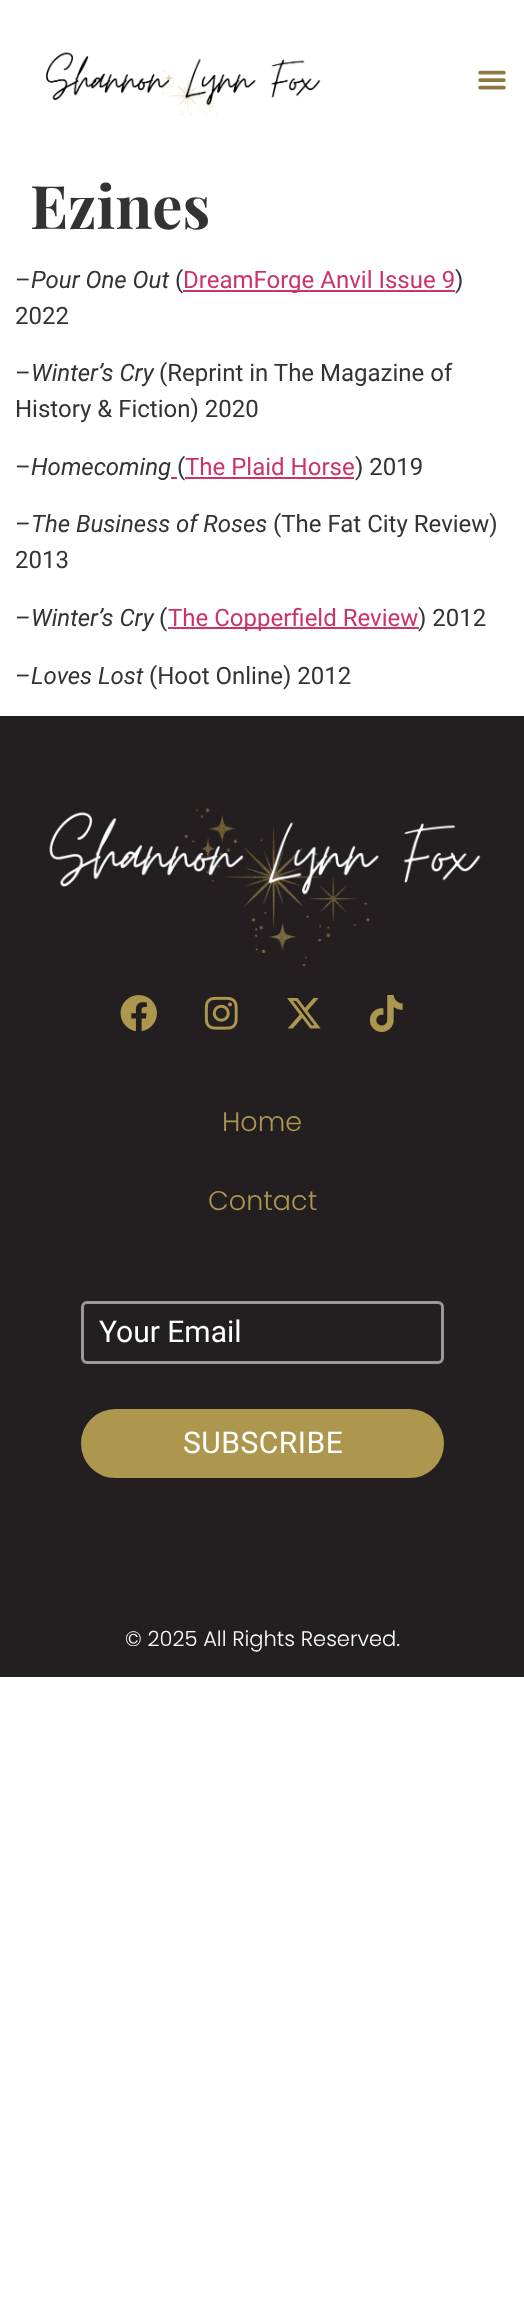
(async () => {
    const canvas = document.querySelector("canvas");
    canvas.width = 524;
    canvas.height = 2302;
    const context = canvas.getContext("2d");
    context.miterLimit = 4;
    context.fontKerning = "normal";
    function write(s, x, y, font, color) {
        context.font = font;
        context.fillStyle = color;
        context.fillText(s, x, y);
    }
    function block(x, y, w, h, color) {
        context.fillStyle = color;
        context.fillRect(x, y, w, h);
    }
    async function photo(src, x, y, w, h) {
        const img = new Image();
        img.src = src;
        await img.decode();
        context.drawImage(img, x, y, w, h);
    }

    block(0, 0, 524, 2302, "rgb(255, 255, 255)");
    await photo("media/1.png", 45, 52, 276, 64);
    await photo("media/2.png", 478, 70, 28, 20);
    write("Ezines", 30, 229, "bold 60px Playfair Display", "rgb(51, 51, 51)");
    write("–", 15, 288, "24px Roboto", "rgb(51, 51, 51)");
    write("Pour One Out", 31, 288, "italic 24px Roboto", "rgb(51, 51, 51)");
    write("(", 175, 288, "24px Roboto", "rgb(51, 51, 51)");
    block(183, 290, 272, 2, "rgb(204, 51, 102)");
    write("DreamForge Anvil Issue 9", 183, 288, "24px Roboto", "rgb(204, 51, 102)");
    write(")", 455, 288, "24px Roboto", "rgb(51, 51, 51)");
    write("2022", 15, 324, "24px Roboto", "rgb(51, 51, 51)");
    write("–", 15, 381, "24px Roboto", "rgb(51, 51, 51)");
    write("Winter’s Cry", 31, 381, "italic 24px Roboto", "rgb(51, 51, 51)");
    write("(Reprint in The Magazine of", 159, 381, "24px Roboto", "rgb(51, 51, 51)");
    write("History & Fiction) 2020", 15, 417, "24px Roboto", "rgb(51, 51, 51)");
    write("–", 15, 475, "24px Roboto", "rgb(51, 51, 51)");
    write("Homecoming", 31, 475, "italic 24px Roboto", "rgb(51, 51, 51)");
    block(171, 477, 6, 2, "rgb(204, 51, 102)");
    write("(", 177, 475, "24px Roboto", "rgb(51, 51, 51)");
    write("The Plaid Horse", 185, 475, "24px Roboto", "rgb(204, 51, 102)");
    block(185, 477, 169, 2, "rgb(204, 51, 102)");
    write(") 2019", 355, 475, "24px Roboto", "rgb(51, 51, 51)");
    write("–", 15, 532, "24px Roboto", "rgb(51, 51, 51)");
    write("The Business of Roses", 31, 532, "italic 24px Roboto", "rgb(51, 51, 51)");
    write("(The Fat City Review)", 273, 532, "24px Roboto", "rgb(51, 51, 51)");
    write("2013", 15, 568, "24px Roboto", "rgb(51, 51, 51)");
    write("–", 15, 626, "24px Roboto", "rgb(51, 51, 51)");
    write("Winter’s Cry", 31, 626, "italic 24px Roboto", "rgb(51, 51, 51)");
    write("(", 159, 626, "24px Roboto", "rgb(51, 51, 51)");
    block(168, 627, 251, 2, "rgb(204, 51, 102)");
    write("The Copperfield Review", 168, 626, "24px Roboto", "rgb(204, 51, 102)");
    write(") 2012", 418, 626, "24px Roboto", "rgb(51, 51, 51)");
    write("–", 15, 684, "24px Roboto", "rgb(51, 51, 51)");
    write("Loves Lost", 31, 684, "italic 24px Roboto", "rgb(51, 51, 51)");
    write("(Hoot Online) 2012", 149, 684, "24px Roboto", "rgb(51, 51, 51)");
    block(0, 716, 524, 961, "rgb(35, 31, 32)");
    await photo("media/3.png", 49, 808, 432, 159);
    await photo("media/4.png", 120, 995, 37, 37);
    await photo("media/5.png", 204, 996, 34, 34);
    await photo("media/6.png", 287, 998, 34, 31);
    await photo("media/7.png", 369, 995, 34, 37);
    write("Home", 222, 1131, "300 27px Poppins", "rgb(173, 151, 79)");
    write("Contact", 208, 1210, "300 27px Poppins", "rgb(173, 151, 79)");
    context.beginPath();
    context.roundRect(82.5, 1302.5, 360, 60, 4.5);
    context.strokeStyle = "rgb(154, 152, 152)";
    context.lineWidth = 3;
    context.stroke();
    write("Your Email", 99, 1342, "30px Roboto", "rgb(255, 255, 255)");
    context.fillStyle = "rgb(173, 151, 79)";
    context.beginPath();
    context.roundRect(82, 1410, 361, 67, 33.5);
    context.fill();
    context.strokeStyle = "rgb(173, 151, 79)";
    context.lineWidth = 2;
    context.stroke();
    context.letterSpacing = "0.5px";
    write("SUBSCRIBE", 183, 1453, "30px Roboto", "rgb(255, 255, 255)");
    context.letterSpacing = "0px";
    write("© 2025 All Rights Reserved.", 125, 1646, "300 21px Poppins", "rgb(255, 255, 255)");
})();
